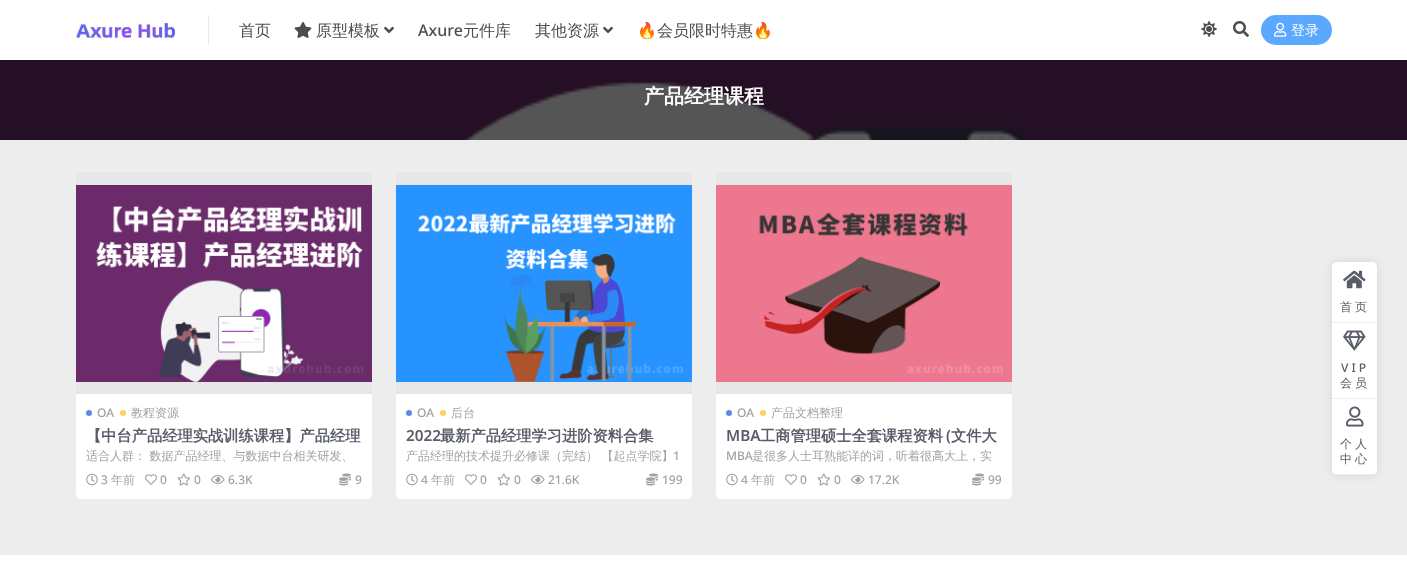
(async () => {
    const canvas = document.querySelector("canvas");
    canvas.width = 1407;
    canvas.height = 565;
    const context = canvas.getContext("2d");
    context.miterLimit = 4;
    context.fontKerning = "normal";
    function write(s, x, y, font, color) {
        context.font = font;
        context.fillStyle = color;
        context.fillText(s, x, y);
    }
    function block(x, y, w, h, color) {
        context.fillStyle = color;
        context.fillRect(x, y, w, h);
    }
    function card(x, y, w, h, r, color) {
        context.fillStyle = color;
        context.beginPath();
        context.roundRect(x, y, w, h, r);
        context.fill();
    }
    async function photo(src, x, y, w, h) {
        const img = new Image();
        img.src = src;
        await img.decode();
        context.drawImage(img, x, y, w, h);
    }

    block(0, 0, 1407, 565, "rgb(237, 237, 237)");
    block(0, 0, 1407, 60, "rgb(255, 255, 255)");
    await photo("media/1.png", 76, 19, 100, 20);
    block(208, 15, 1, 30, "rgb(232, 232, 233)");
    write("首页", 239, 36, "500 16px WenQuanYi Zen Hei", "rgb(77, 77, 77)");
    await photo("media/2.png", 294, 22, 18, 16);
    write("原型模板", 316, 36, "500 16px WenQuanYi Zen Hei", "rgb(77, 77, 77)");
    await photo("media/3.png", 384, 26, 10, 8);
    write("Axure", 418, 36, "500 16px Noto Sans", "rgb(77, 77, 77)");
    write("元件库", 463, 36, "500 16px WenQuanYi Zen Hei", "rgb(77, 77, 77)");
    write("其他资源", 535, 36, "500 16px WenQuanYi Zen Hei", "rgb(77, 77, 77)");
    await photo("media/3.png", 603, 26, 10, 8);
    write("🔥", 637, 36, "16px Noto Color Emoji", "rgb(77, 77, 77)");
    write("会员限时特惠", 657, 36, "500 16px WenQuanYi Zen Hei", "rgb(77, 77, 77)");
    write("🔥", 753, 36, "16px Noto Color Emoji", "rgb(77, 77, 77)");
    await photo("media/4.png", 1201, 21, 16, 16);
    await photo("media/5.png", 1233, 21, 16, 16);
    card(1261, 15, 71, 30, 15, "rgb(91, 168, 255)");
    await photo("media/6.png", 1274, 22, 13, 15);
    write("登录", 1291, 35, "500 14px WenQuanYi Zen Hei", "rgb(255, 255, 255)");
    await photo("media/7.png", 0, 60, 1407, 80);
    write("产品经理课程", 644, 103, "bold 20px WenQuanYi Zen Hei", "rgb(255, 255, 255)");
    card(76, 172, 296, 327, 5, "rgb(255, 255, 255)");
    context.fillStyle = "rgb(231, 231, 231)";
    context.beginPath();
    context.roundRect(76, 172, 296, 222, [5, 5, 0, 0]);
    context.fill();
    await photo("media/8.png", 76, 185, 296, 197);
    context.fillStyle = "rgb(89, 138, 238)";
    context.beginPath();
    context.arc(89, 413, 3, 0, Math.PI * 2);
    context.fill();
    write("OA", 97, 417, "500 12px Noto Sans", "rgb(161, 161, 168)");
    context.fillStyle = "rgb(249, 210, 98)";
    context.beginPath();
    context.arc(123, 413, 3, 0, Math.PI * 2);
    context.fill();
    write("教程资源", 131, 417, "500 12px WenQuanYi Zen Hei", "rgb(161, 161, 168)");
    write("【中台产品经理实战训练课程】产品经理", 86, 441, "bold 15.25px WenQuanYi Zen Hei", "rgb(89, 93, 105)");
    write("适合人群： 数据产品经理、与数据中台相关研发、", 86, 460, "500 12px WenQuanYi Zen Hei", "rgb(161, 161, 168)");
    await photo("media/9.png", 86, 473, 12, 13);
    write("3", 101, 484, "500 12px Noto Sans", "rgb(161, 161, 168)");
    write("年前", 111, 484, "500 12px WenQuanYi Zen Hei", "rgb(161, 161, 168)");
    await photo("media/10.png", 145, 474, 12, 11);
    write("0", 160, 484, "500 12px Noto Sans", "rgb(161, 161, 168)");
    await photo("media/11.png", 177, 473, 13, 13);
    write("0", 194, 484, "500 12px Noto Sans", "rgb(161, 161, 168)");
    await photo("media/12.png", 211, 475, 14, 9);
    write("6.3K", 228, 484, "500 12px Noto Sans", "rgb(161, 161, 168)");
    await photo("media/13.png", 339, 473, 12, 13);
    write("9", 355, 484, "500 12px Noto Sans", "rgb(161, 161, 168)");
    card(396, 172, 296, 327, 5, "rgb(255, 255, 255)");
    context.fillStyle = "rgb(231, 231, 231)";
    context.beginPath();
    context.roundRect(396, 172, 296, 222, [5, 5, 0, 0]);
    context.fill();
    await photo("media/14.png", 396, 185, 296, 197);
    context.fillStyle = "rgb(89, 138, 238)";
    context.beginPath();
    context.arc(409, 413, 3, 0, Math.PI * 2);
    context.fill();
    write("OA", 417, 417, "500 12px Noto Sans", "rgb(161, 161, 168)");
    context.fillStyle = "rgb(249, 210, 98)";
    context.beginPath();
    context.arc(443, 413, 3, 0, Math.PI * 2);
    context.fill();
    write("后台", 451, 417, "500 12px WenQuanYi Zen Hei", "rgb(161, 161, 168)");
    write("2022", 406, 441, "600 15.25px Noto Sans", "rgb(89, 93, 105)");
    write("最新产品经理学习进阶资料合集", 440, 441, "bold 15.25px WenQuanYi Zen Hei", "rgb(89, 93, 105)");
    write("产品经理的技术提升必修课（完结） 【起点学院】", 406, 460, "500 12px WenQuanYi Zen Hei", "rgb(161, 161, 168)");
    write("1", 673, 460, "500 12px Noto Sans", "rgb(161, 161, 168)");
    await photo("media/9.png", 406, 473, 12, 13);
    write("4", 421, 484, "500 12px Noto Sans", "rgb(161, 161, 168)");
    write("年前", 431, 484, "500 12px WenQuanYi Zen Hei", "rgb(161, 161, 168)");
    await photo("media/10.png", 465, 474, 12, 11);
    write("0", 480, 484, "500 12px Noto Sans", "rgb(161, 161, 168)");
    await photo("media/11.png", 497, 473, 13, 13);
    write("0", 514, 484, "500 12px Noto Sans", "rgb(161, 161, 168)");
    await photo("media/12.png", 531, 475, 14, 9);
    write("21.6K", 548, 484, "500 12px Noto Sans", "rgb(161, 161, 168)");
    await photo("media/13.png", 646, 473, 12, 13);
    write("199", 662, 484, "500 12px Noto Sans", "rgb(161, 161, 168)");
    card(716, 172, 296, 327, 5, "rgb(255, 255, 255)");
    context.fillStyle = "rgb(231, 231, 231)";
    context.beginPath();
    context.roundRect(716, 172, 296, 222, [5, 5, 0, 0]);
    context.fill();
    await photo("media/15.png", 716, 185, 296, 197);
    context.fillStyle = "rgb(89, 138, 238)";
    context.beginPath();
    context.arc(729, 413, 3, 0, Math.PI * 2);
    context.fill();
    write("OA", 737, 417, "500 12px Noto Sans", "rgb(161, 161, 168)");
    context.fillStyle = "rgb(249, 210, 98)";
    context.beginPath();
    context.arc(763, 413, 3, 0, Math.PI * 2);
    context.fill();
    write("产品文档整理", 771, 417, "500 12px WenQuanYi Zen Hei", "rgb(161, 161, 168)");
    write("MBA", 726, 441, "600 15.25px Noto Sans", "rgb(89, 93, 105)");
    write("工商管理硕士全套课程资料", 760, 441, "bold 15.25px WenQuanYi Zen Hei", "rgb(89, 93, 105)");
    write("(", 946, 441, "600 15.25px Noto Sans", "rgb(89, 93, 105)");
    write("文件大", 951, 441, "bold 15.25px WenQuanYi Zen Hei", "rgb(89, 93, 105)");
    write("MBA", 726, 460, "500 12px Noto Sans", "rgb(161, 161, 168)");
    write("是很多人士耳熟能详的词，听着很高大上，实", 752, 460, "500 12px WenQuanYi Zen Hei", "rgb(161, 161, 168)");
    await photo("media/9.png", 726, 473, 12, 13);
    write("4", 741, 484, "500 12px Noto Sans", "rgb(161, 161, 168)");
    write("年前", 751, 484, "500 12px WenQuanYi Zen Hei", "rgb(161, 161, 168)");
    await photo("media/10.png", 785, 474, 12, 11);
    write("0", 800, 484, "500 12px Noto Sans", "rgb(161, 161, 168)");
    await photo("media/11.png", 817, 473, 13, 13);
    write("0", 834, 484, "500 12px Noto Sans", "rgb(161, 161, 168)");
    await photo("media/12.png", 851, 475, 14, 9);
    write("17.2K", 868, 484, "500 12px Noto Sans", "rgb(161, 161, 168)");
    await photo("media/13.png", 972, 473, 12, 13);
    write("99", 988, 484, "500 12px Noto Sans", "rgb(161, 161, 168)");
    context.fillStyle = "rgba(0, 0, 0, 0.1)";
    context.filter = "blur(5px)";
    context.beginPath();
    context.roundRect(1332, 262, 45, 213, 5);
    context.fill();
    context.filter = "none";
    context.fillStyle = "rgb(255, 255, 255)";
    context.beginPath();
    context.roundRect(1332, 262, 45, 61, [5, 5, 0, 0]);
    context.fill();
    block(1332, 322, 45, 1, "rgb(238, 238, 238)");
    await photo("media/16.png", 1343, 270, 23, 19);
    context.letterSpacing = "3px";
    write("首页", 1340, 311, "500 12px WenQuanYi Zen Hei", "rgb(89, 93, 105)");
    block(1332, 323, 45, 75, "rgb(255, 255, 255)");
    block(1332, 398, 45, 1, "rgb(238, 238, 238)");
    await photo("media/17.png", 1343, 330, 23, 21);
    write("VIP", 1341, 372, "500 12px Noto Sans", "rgb(89, 93, 105)");
    write("会员", 1340, 387, "500 12px WenQuanYi Zen Hei", "rgb(89, 93, 105)");
    context.fillStyle = "rgb(255, 255, 255)";
    context.beginPath();
    context.roundRect(1332, 399, 45, 76, [0, 0, 5, 5]);
    context.fill();
    context.save();
    context.beginPath();
    context.roundRect(1332, 262, 45, 213, 5);
    context.clip();
    block(1332, 474, 45, 1, "rgb(238, 238, 238)");
    context.restore();
    await photo("media/18.png", 1346, 406, 18, 21);
    write("个人", 1340, 448, "500 12px WenQuanYi Zen Hei", "rgb(89, 93, 105)");
    write("中心", 1340, 463, "500 12px WenQuanYi Zen Hei", "rgb(89, 93, 105)");
    block(0, 555, 1407, 10, "rgb(255, 255, 255)");
})();
